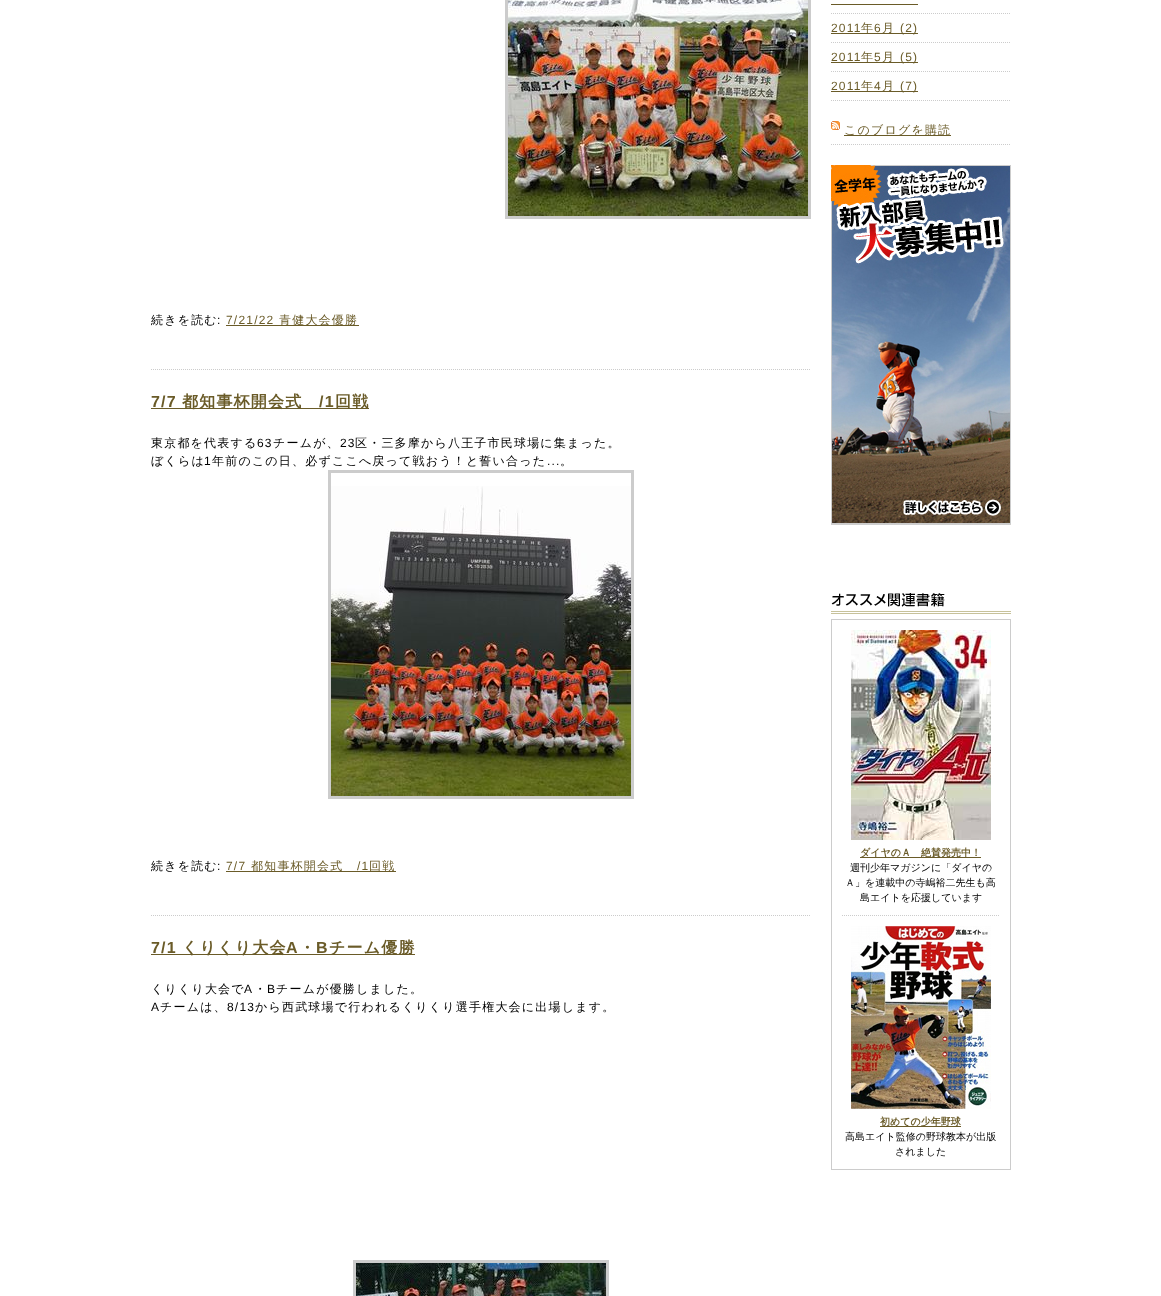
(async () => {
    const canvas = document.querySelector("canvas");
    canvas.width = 1161;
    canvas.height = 1296;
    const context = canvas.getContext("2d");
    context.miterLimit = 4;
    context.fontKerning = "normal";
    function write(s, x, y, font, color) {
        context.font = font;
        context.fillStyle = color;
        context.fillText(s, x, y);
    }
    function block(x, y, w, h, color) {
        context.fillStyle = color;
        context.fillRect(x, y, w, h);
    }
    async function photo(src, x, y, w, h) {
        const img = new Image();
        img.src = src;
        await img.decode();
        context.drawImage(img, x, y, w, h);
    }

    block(0, 0, 1161, 1296, "rgb(255, 255, 255)");
    context.beginPath();
    context.moveTo(151, 369.5);
    context.lineTo(811, 369.5);
    context.strokeStyle = "rgb(204, 204, 204)";
    context.setLineDash([1, 1]);
    context.stroke();
    context.lineWidth = 3;
    context.setLineDash([]);
    context.strokeRect(506.5, -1.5, 303, 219);
    await photo("media/1.png", 508, 0, 300, 216);
    context.letterSpacing = "1.2px";
    write("続きを読む", 151, 324, "500 12px WenQuanYi Zen Hei", "rgb(0, 0, 0)");
    write(":", 217, 324, "12px Liberation Sans", "rgb(0, 0, 0)");
    write("7/21/22", 226, 324, "12px Liberation Sans", "rgb(106, 91, 40)");
    block(226, 325, 133, 1, "rgb(106, 91, 40)");
    write("青健大会優勝", 279, 324, "500 12px WenQuanYi Zen Hei", "rgb(106, 91, 40)");
    context.beginPath();
    context.moveTo(151, 915.5);
    context.lineTo(811, 915.5);
    context.lineWidth = 1;
    context.setLineDash([1, 1]);
    context.stroke();
    write("7/7", 151, 407, "bold 16px Liberation Sans", "rgb(106, 91, 40)");
    block(151, 408, 218, 1, "rgb(106, 91, 40)");
    write("都知事杯開会式", 182, 407, "bold 16px WenQuanYi Zen Hei", "rgb(106, 91, 40)");
    write("/1", 319, 407, "bold 16px Liberation Sans", "rgb(106, 91, 40)");
    write("回戦", 335, 407, "bold 16px WenQuanYi Zen Hei", "rgb(106, 91, 40)");
    write("東京都を代表する", 151, 447, "500 12px WenQuanYi Zen Hei", "rgb(0, 0, 0)");
    write("63", 257, 447, "12px Liberation Sans", "rgb(0, 0, 0)");
    write("チームが、", 273, 447, "500 12px WenQuanYi Zen Hei", "rgb(0, 0, 0)");
    write("23", 340, 447, "12px Liberation Sans", "rgb(0, 0, 0)");
    write("区・三多摩から八王子市民球場に集まった。", 355, 447, "500 12px WenQuanYi Zen Hei", "rgb(0, 0, 0)");
    write("ぼくらは", 151, 465, "500 12px WenQuanYi Zen Hei", "rgb(0, 0, 0)");
    write("1", 204, 465, "12px Liberation Sans", "rgb(0, 0, 0)");
    write("年前のこの日、必ずここへ戻って戦おう！と誓い合った", 212, 465, "500 12px WenQuanYi Zen Hei", "rgb(0, 0, 0)");
    write("...", 547, 465, "12px Liberation Sans", "rgb(0, 0, 0)");
    write("。", 560, 465, "500 12px WenQuanYi Zen Hei", "rgb(0, 0, 0)");
    context.lineWidth = 3;
    context.setLineDash([]);
    context.strokeRect(329.5, 471.5, 303, 326);
    await photo("media/2.png", 331, 486, 300, 310);
    write("続きを読む", 151, 870, "500 12px WenQuanYi Zen Hei", "rgb(0, 0, 0)");
    write(":", 217, 870, "12px Liberation Sans", "rgb(0, 0, 0)");
    write("7/7", 226, 870, "12px Liberation Sans", "rgb(106, 91, 40)");
    block(226, 871, 170, 1, "rgb(106, 91, 40)");
    write("都知事杯開会式", 251, 870, "500 12px WenQuanYi Zen Hei", "rgb(106, 91, 40)");
    write("/1", 357, 870, "12px Liberation Sans", "rgb(106, 91, 40)");
    write("回戦", 369, 870, "500 12px WenQuanYi Zen Hei", "rgb(106, 91, 40)");
    write("7/1", 151, 953, "bold 16px Liberation Sans", "rgb(106, 91, 40)");
    block(151, 954, 264, 1, "rgb(106, 91, 40)");
    write("くりくり大会", 182, 953, "bold 16px WenQuanYi Zen Hei", "rgb(106, 91, 40)");
    write("A", 286, 953, "bold 16px Liberation Sans", "rgb(106, 91, 40)");
    write("・", 299, 953, "bold 16px WenQuanYi Zen Hei", "rgb(106, 91, 40)");
    write("B", 316, 953, "bold 16px Liberation Sans", "rgb(106, 91, 40)");
    write("チーム優勝", 329, 953, "bold 16px WenQuanYi Zen Hei", "rgb(106, 91, 40)");
    write("くりくり大会で", 151, 993, "500 12px WenQuanYi Zen Hei", "rgb(0, 0, 0)");
    write("A", 244, 993, "12px Liberation Sans", "rgb(0, 0, 0)");
    write("・", 254, 993, "500 12px WenQuanYi Zen Hei", "rgb(0, 0, 0)");
    write("B", 267, 993, "12px Liberation Sans", "rgb(0, 0, 0)");
    write("チームが優勝しました。", 276, 993, "500 12px WenQuanYi Zen Hei", "rgb(0, 0, 0)");
    write("A", 151, 1011, "12px Liberation Sans", "rgb(0, 0, 0)");
    write("チームは、", 160, 1011, "500 12px WenQuanYi Zen Hei", "rgb(0, 0, 0)");
    write("8/13", 227, 1011, "12px Liberation Sans", "rgb(0, 0, 0)");
    write("から西武球場で行われるくりくり選手権大会に出場します。", 255, 1011, "500 12px WenQuanYi Zen Hei", "rgb(0, 0, 0)");
    context.strokeRect(354.5, 1261.5, 253, 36);
    await photo("media/3.png", 356, 1263, 250, 33);
    context.beginPath();
    context.moveTo(831, 13.5);
    context.lineTo(1011, 13.5);
    context.lineWidth = 1;
    context.setLineDash([1, 1]);
    context.stroke();
    block(831, 4, 87, 1, "rgb(106, 91, 40)");
    context.beginPath();
    context.moveTo(831, 42.5);
    context.lineTo(1011, 42.5);
    context.stroke();
    write("2011", 831, 32, "12px Liberation Sans", "rgb(106, 91, 40)");
    block(831, 33, 87, 1, "rgb(106, 91, 40)");
    write("年", 861, 32, "500 12px WenQuanYi Zen Hei", "rgb(106, 91, 40)");
    write("6", 874, 32, "12px Liberation Sans", "rgb(106, 91, 40)");
    write("月", 882, 32, "500 12px WenQuanYi Zen Hei", "rgb(106, 91, 40)");
    write("(2)", 900, 32, "12px Liberation Sans", "rgb(106, 91, 40)");
    context.beginPath();
    context.moveTo(831, 71.5);
    context.lineTo(1011, 71.5);
    context.stroke();
    write("2011", 831, 61, "12px Liberation Sans", "rgb(106, 91, 40)");
    block(831, 62, 87, 1, "rgb(106, 91, 40)");
    write("年", 861, 61, "500 12px WenQuanYi Zen Hei", "rgb(106, 91, 40)");
    write("5", 874, 61, "12px Liberation Sans", "rgb(106, 91, 40)");
    write("月", 882, 61, "500 12px WenQuanYi Zen Hei", "rgb(106, 91, 40)");
    write("(5)", 900, 61, "12px Liberation Sans", "rgb(106, 91, 40)");
    context.beginPath();
    context.moveTo(831, 100.5);
    context.lineTo(1011, 100.5);
    context.stroke();
    write("2011", 831, 90, "12px Liberation Sans", "rgb(106, 91, 40)");
    block(831, 91, 87, 1, "rgb(106, 91, 40)");
    write("年", 861, 90, "500 12px WenQuanYi Zen Hei", "rgb(106, 91, 40)");
    write("4", 874, 90, "12px Liberation Sans", "rgb(106, 91, 40)");
    write("月", 882, 90, "500 12px WenQuanYi Zen Hei", "rgb(106, 91, 40)");
    write("(7)", 900, 90, "12px Liberation Sans", "rgb(106, 91, 40)");
    context.beginPath();
    context.moveTo(831, 144.5);
    context.lineTo(1011, 144.5);
    context.stroke();
    await photo("media/4.png", 831, 121, 9, 9);
    block(844, 135, 107, 1, "rgb(106, 91, 40)");
    write("このブログを購読", 844, 134, "500 12px WenQuanYi Zen Hei", "rgb(106, 91, 40)");
    await photo("media/5.png", 831, 165, 180, 360);
    await photo("media/6.png", 831, 593, 180, 21);
    context.setLineDash([]);
    context.strokeRect(831.5, 619.5, 179, 550);
    await photo("media/7.png", 851, 630, 140, 210);
    block(860, 857, 121, 1, "rgb(106, 91, 40)");
    context.letterSpacing = "0px";
    write("ダイヤのＡ　絶賛発売中！", 860, 856, "bold 10px WenQuanYi Zen Hei", "rgb(106, 91, 40)");
    write("週刊少年マガジンに「ダイヤの", 850, 871, "500 10px WenQuanYi Zen Hei", "rgb(0, 0, 0)");
    write("Ａ」を連載中の寺嶋裕二先生も高", 845, 886, "500 10px WenQuanYi Zen Hei", "rgb(0, 0, 0)");
    write("島エイトを応援しています", 860, 901, "500 10px WenQuanYi Zen Hei", "rgb(0, 0, 0)");
    context.beginPath();
    context.moveTo(842, 915.5);
    context.lineTo(1000, 915.5);
    context.setLineDash([1, 1]);
    context.stroke();
    await photo("media/8.png", 851, 926, 140, 183);
    block(880, 1126, 81, 1, "rgb(106, 91, 40)");
    write("初めての少年野球", 880, 1125, "bold 10px WenQuanYi Zen Hei", "rgb(106, 91, 40)");
    write("高島エイト監修の野球教本が出版", 845, 1140, "500 10px WenQuanYi Zen Hei", "rgb(0, 0, 0)");
    write("されました", 895, 1155, "500 10px WenQuanYi Zen Hei", "rgb(0, 0, 0)");
})();
